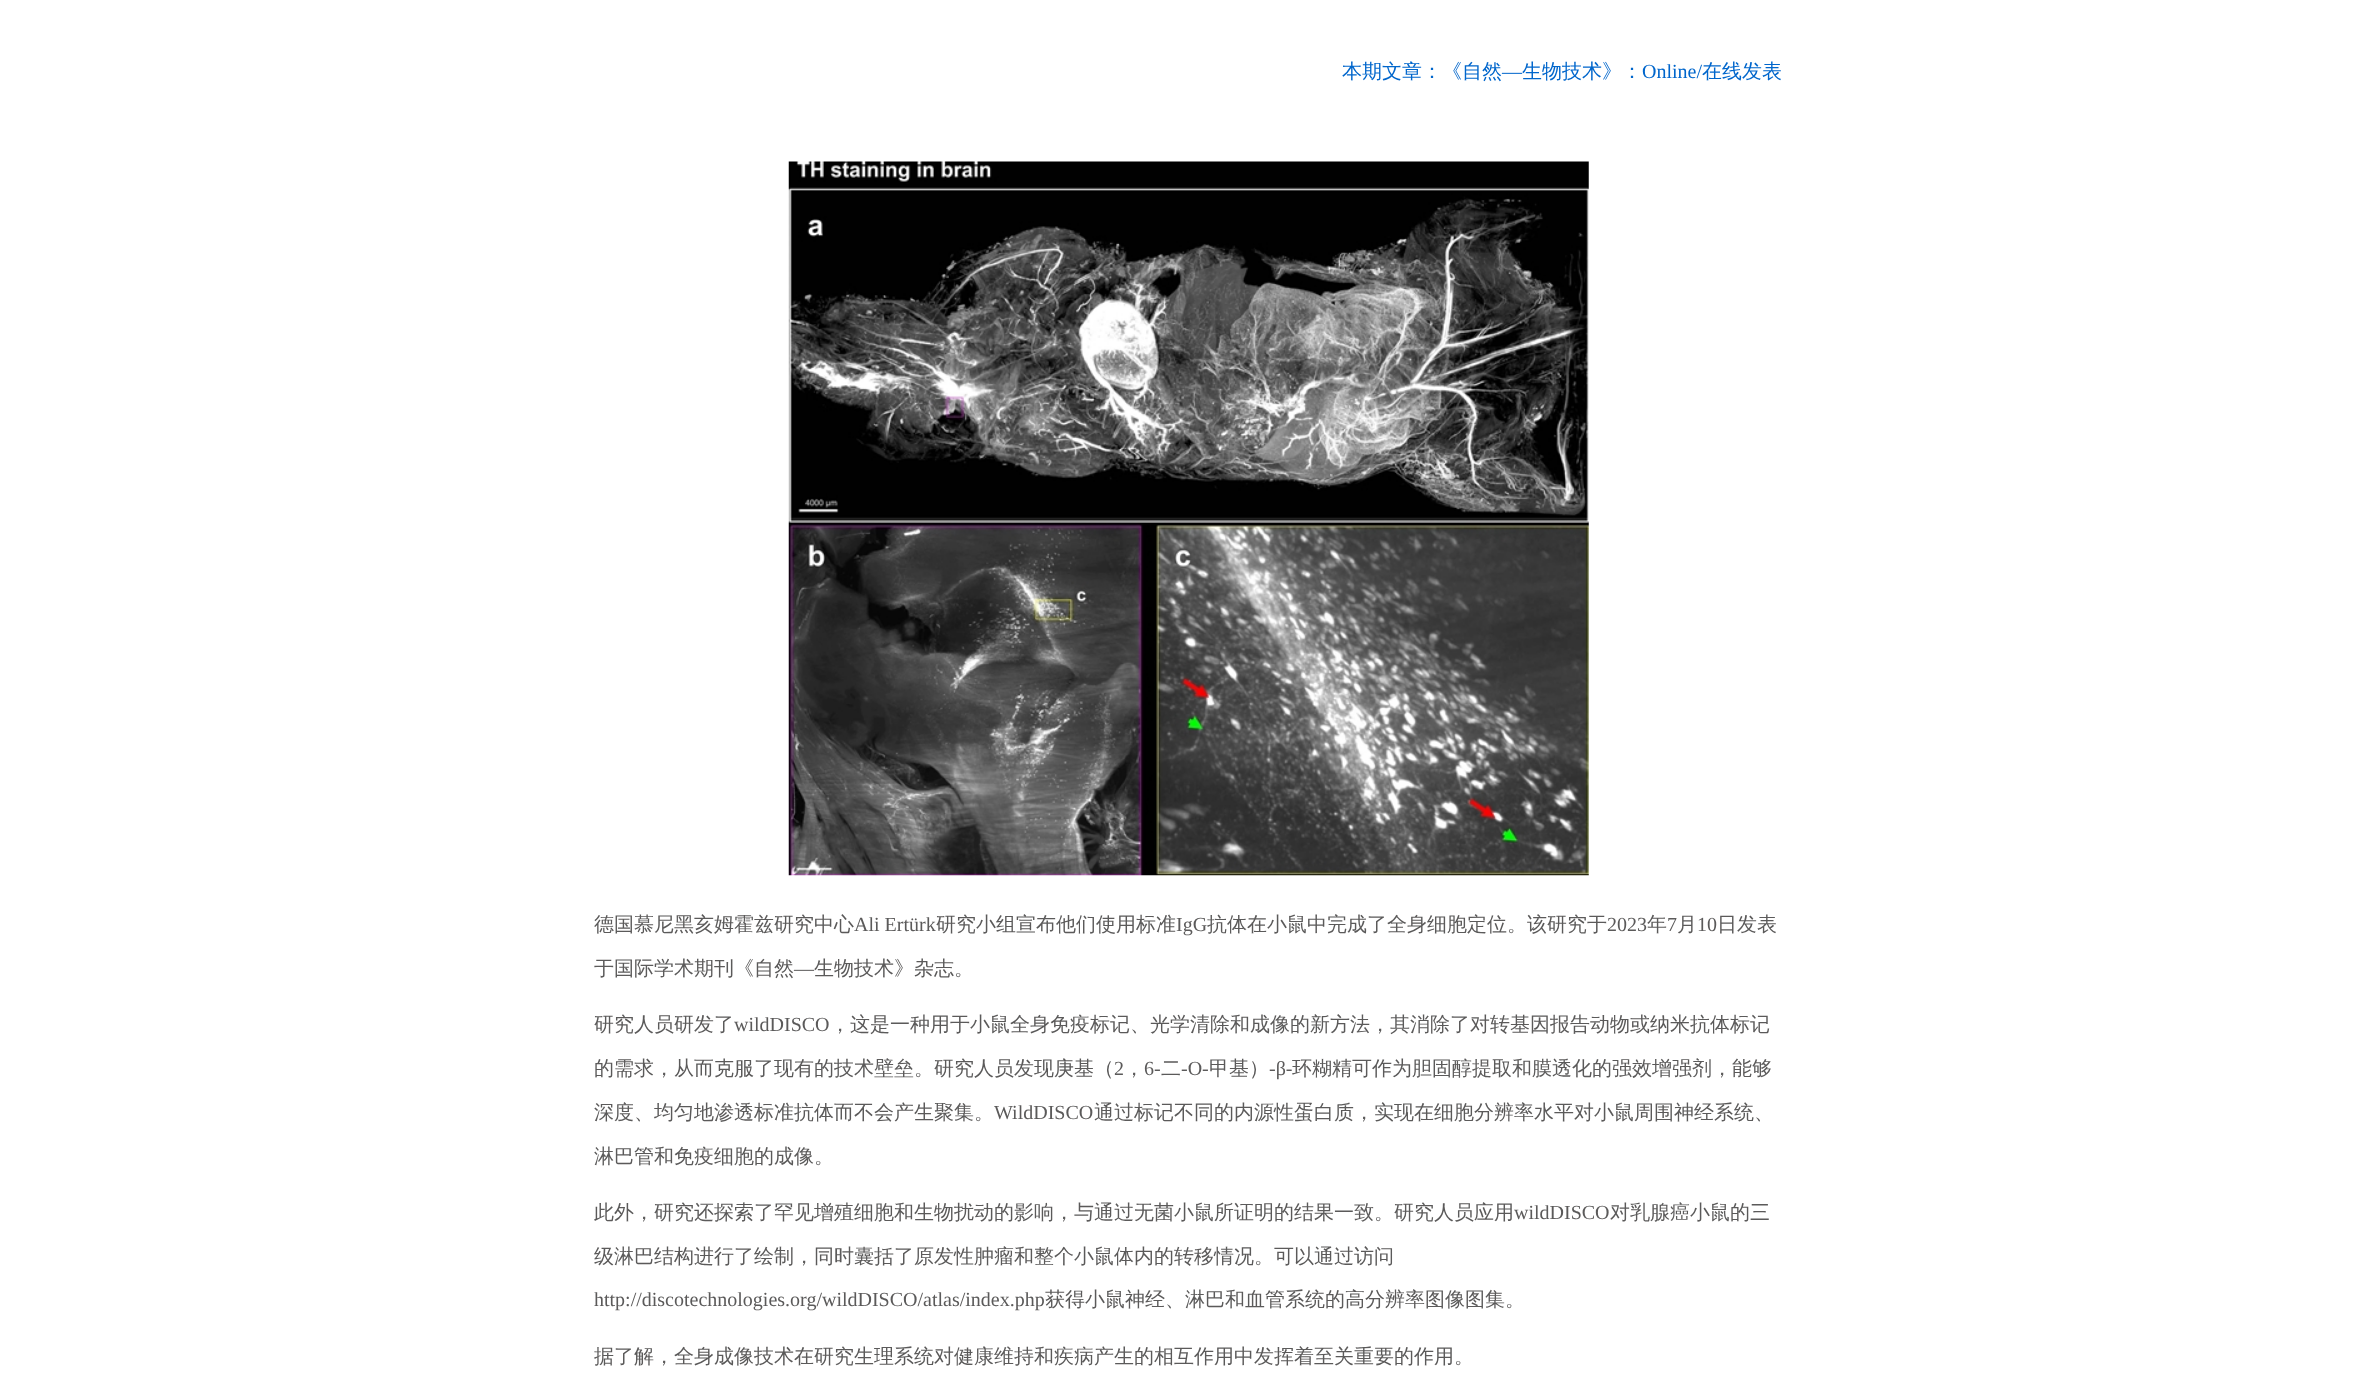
(async () => {
    const canvas = document.querySelector("canvas");
    canvas.width = 2376;
    canvas.height = 1378;
    const context = canvas.getContext("2d");
    context.miterLimit = 4;
    context.fontKerning = "normal";
    function write(s, x, y, font, color) {
        context.font = font;
        context.fillStyle = color;
        context.fillText(s, x, y);
    }
    function block(x, y, w, h, color) {
        context.fillStyle = color;
        context.fillRect(x, y, w, h);
    }
    async function photo(src, x, y, w, h) {
        const img = new Image();
        img.src = src;
        await img.decode();
        context.drawImage(img, x, y, w, h);
    }

    block(0, 0, 2376, 1378, "rgb(255, 255, 255)");
    write("本期文章：《自然", 1342, 78, "500 20px WenQuanYi Zen Hei", "rgb(0, 102, 204)");
    write("—", 1502, 78, "20px Liberation Serif", "rgb(0, 102, 204)");
    write("生物技术》：", 1522, 78, "500 20px WenQuanYi Zen Hei", "rgb(0, 102, 204)");
    write("Online/", 1642, 78, "20px Liberation Serif", "rgb(0, 102, 204)");
    write("在线发表", 1702, 78, "500 20px WenQuanYi Zen Hei", "rgb(0, 102, 204)");
    await photo("media/1.png", 788, 161, 801, 715);
    write("德国慕尼黑亥姆霍兹研究中心", 594, 931, "500 20px WenQuanYi Zen Hei", "rgb(91, 90, 90)");
    write("Ali Ertürk", 854, 931, "20px Liberation Serif", "rgb(91, 90, 90)");
    write("研究小组宣布他们使用标准", 936, 931, "500 20px WenQuanYi Zen Hei", "rgb(91, 90, 90)");
    write("IgG", 1176, 931, "20px Liberation Serif", "rgb(91, 90, 90)");
    write("抗体在小鼠中完成了全身细胞定位。该研究于", 1207, 931, "500 20px WenQuanYi Zen Hei", "rgb(91, 90, 90)");
    write("2023", 1607, 931, "20px Liberation Serif", "rgb(91, 90, 90)");
    write("年", 1647, 931, "500 20px WenQuanYi Zen Hei", "rgb(91, 90, 90)");
    write("7", 1667, 931, "20px Liberation Serif", "rgb(91, 90, 90)");
    write("月", 1677, 931, "500 20px WenQuanYi Zen Hei", "rgb(91, 90, 90)");
    write("10", 1697, 931, "20px Liberation Serif", "rgb(91, 90, 90)");
    write("日发表", 1717, 931, "500 20px WenQuanYi Zen Hei", "rgb(91, 90, 90)");
    write("于国际学术期刊《自然", 594, 975, "500 20px WenQuanYi Zen Hei", "rgb(91, 90, 90)");
    write("—", 794, 975, "20px Liberation Serif", "rgb(91, 90, 90)");
    write("生物技术》杂志。", 814, 975, "500 20px WenQuanYi Zen Hei", "rgb(91, 90, 90)");
    write("研究人员研发了", 594, 1031, "500 20px WenQuanYi Zen Hei", "rgb(91, 90, 90)");
    write("wildDISCO", 734, 1031, "20px Liberation Serif", "rgb(91, 90, 90)");
    write("，这是一种用于小鼠全身免疫标记、光学清除和成像的新方法，其消除了对转基因报告动物或纳米抗体标记", 830, 1031, "500 20px WenQuanYi Zen Hei", "rgb(91, 90, 90)");
    write("的需求，从而克服了现有的技术壁垒。研究人员发现庚基（", 594, 1075, "500 20px WenQuanYi Zen Hei", "rgb(91, 90, 90)");
    write("2", 1114, 1075, "20px Liberation Serif", "rgb(91, 90, 90)");
    write("，", 1124, 1075, "500 20px WenQuanYi Zen Hei", "rgb(91, 90, 90)");
    write("6-", 1144, 1075, "20px Liberation Serif", "rgb(91, 90, 90)");
    write("二", 1161, 1075, "500 20px WenQuanYi Zen Hei", "rgb(91, 90, 90)");
    write("-O-", 1181, 1075, "20px Liberation Serif", "rgb(91, 90, 90)");
    write("甲基）", 1209, 1075, "500 20px WenQuanYi Zen Hei", "rgb(91, 90, 90)");
    write("-β-", 1269, 1075, "20px Liberation Serif", "rgb(91, 90, 90)");
    write("环糊精可作为胆固醇提取和膜透化的强效增强剂，能够", 1292, 1075, "500 20px WenQuanYi Zen Hei", "rgb(91, 90, 90)");
    write("深度、均匀地渗透标准抗体而不会产生聚集。", 594, 1119, "500 20px WenQuanYi Zen Hei", "rgb(91, 90, 90)");
    write("WildDISCO", 994, 1119, "20px Liberation Serif", "rgb(91, 90, 90)");
    write("通过标记不同的内源性蛋白质，实现在细胞分辨率水平对小鼠周围神经系统、", 1094, 1119, "500 20px WenQuanYi Zen Hei", "rgb(91, 90, 90)");
    write("淋巴管和免疫细胞的成像。", 594, 1163, "500 20px WenQuanYi Zen Hei", "rgb(91, 90, 90)");
    write("此外，研究还探索了罕见增殖细胞和生物扰动的影响，与通过无菌小鼠所证明的结果一致。研究人员应用", 594, 1219, "500 20px WenQuanYi Zen Hei", "rgb(91, 90, 90)");
    write("wildDISCO", 1514, 1219, "20px Liberation Serif", "rgb(91, 90, 90)");
    write("对乳腺癌小鼠的三", 1610, 1219, "500 20px WenQuanYi Zen Hei", "rgb(91, 90, 90)");
    write("级淋巴结构进行了绘制，同时囊括了原发性肿瘤和整个小鼠体内的转移情况。可以通过访问", 594, 1263, "500 20px WenQuanYi Zen Hei", "rgb(91, 90, 90)");
    write("http://discotechnologies.org/wildDISCO/atlas/index.php", 594, 1306, "20px Liberation Serif", "rgb(91, 90, 90)");
    write("获得小鼠神经、淋巴和血管系统的高分辨率图像图集。", 1045, 1306, "500 20px WenQuanYi Zen Hei", "rgb(91, 90, 90)");
    write("据了解，全身成像技术在研究生理系统对健康维持和疾病产生的相互作用中发挥着至关重要的作用。", 594, 1363, "500 20px WenQuanYi Zen Hei", "rgb(91, 90, 90)");
})();
